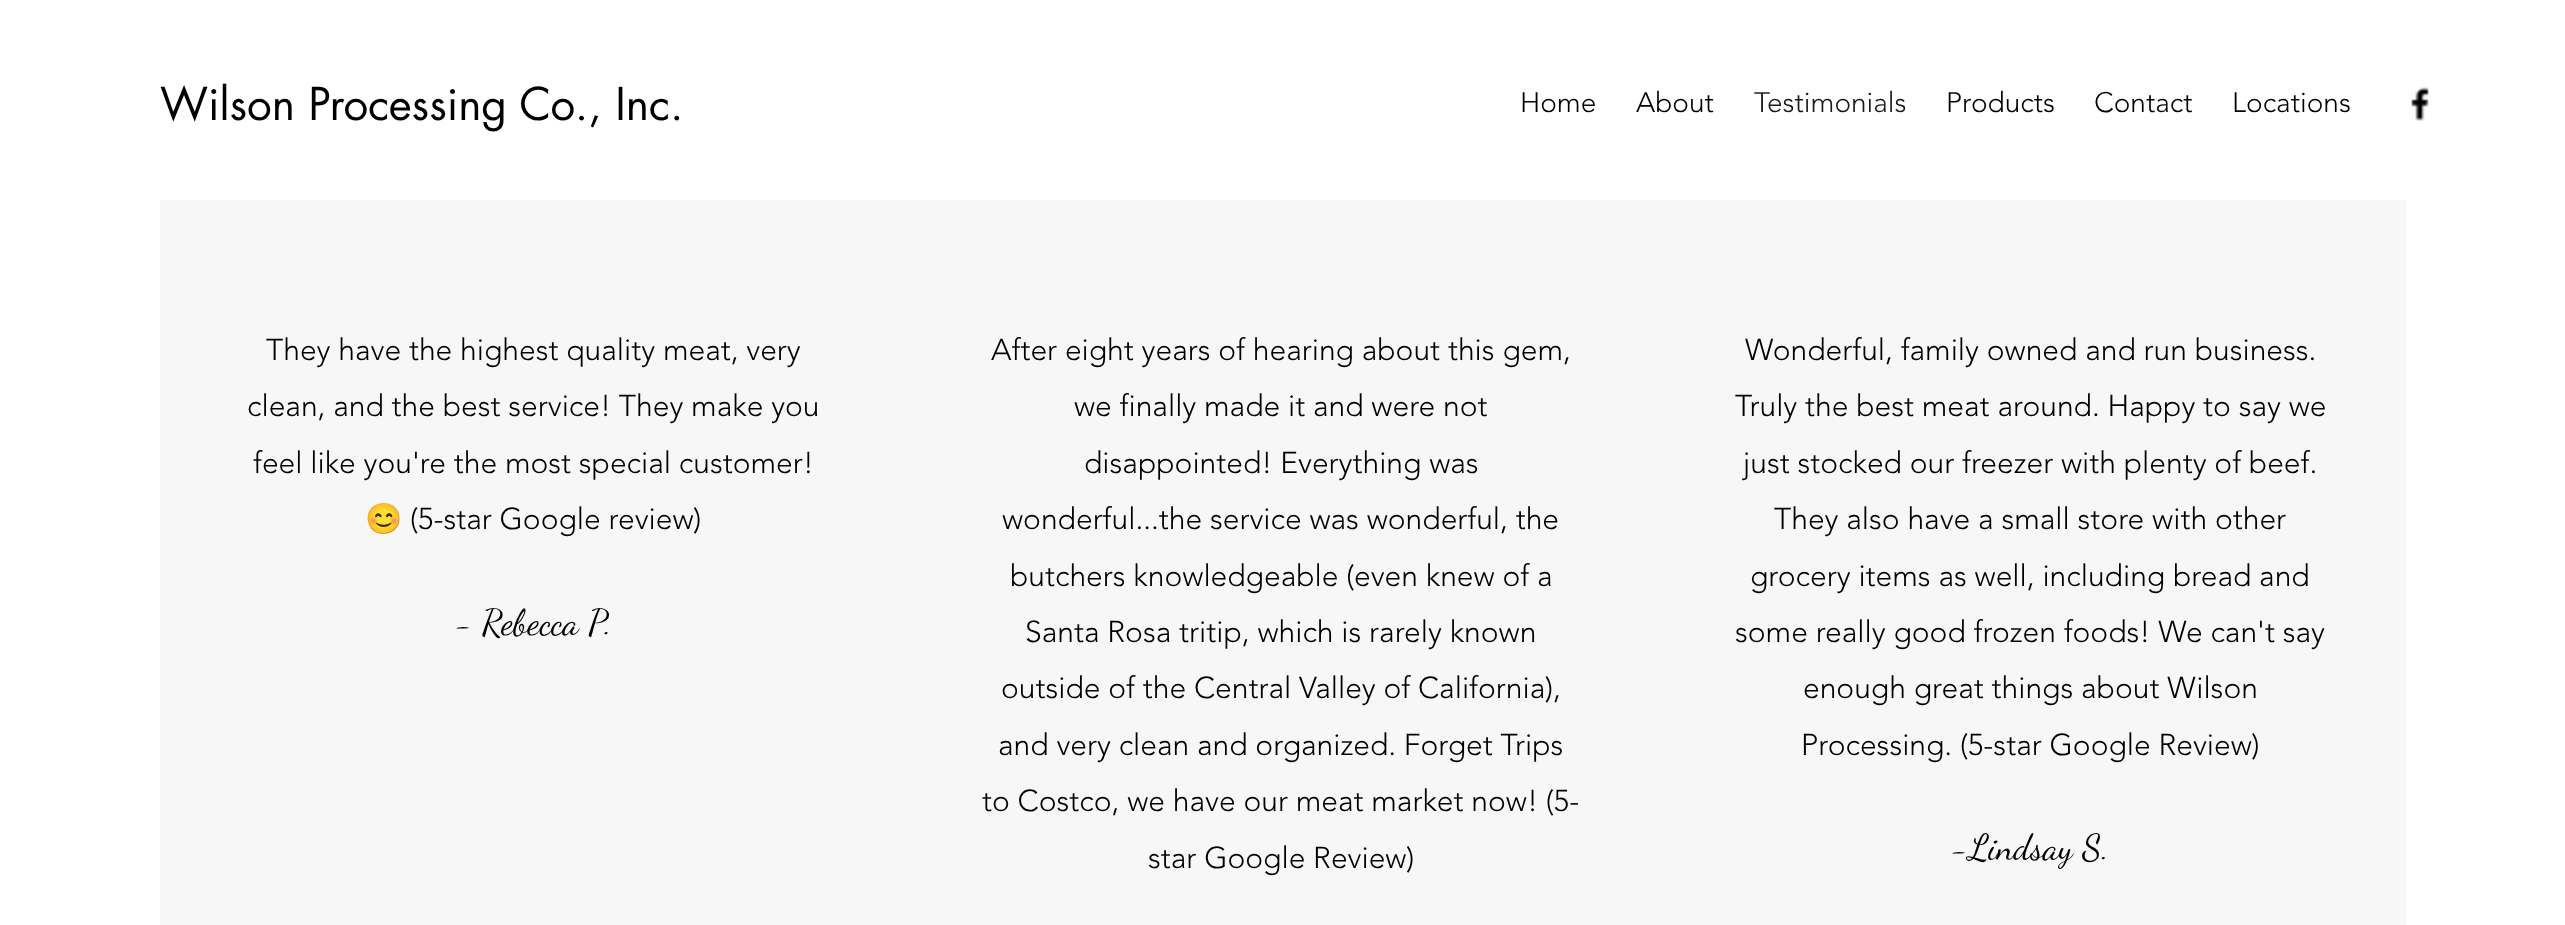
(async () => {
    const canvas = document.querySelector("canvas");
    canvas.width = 2565;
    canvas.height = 925;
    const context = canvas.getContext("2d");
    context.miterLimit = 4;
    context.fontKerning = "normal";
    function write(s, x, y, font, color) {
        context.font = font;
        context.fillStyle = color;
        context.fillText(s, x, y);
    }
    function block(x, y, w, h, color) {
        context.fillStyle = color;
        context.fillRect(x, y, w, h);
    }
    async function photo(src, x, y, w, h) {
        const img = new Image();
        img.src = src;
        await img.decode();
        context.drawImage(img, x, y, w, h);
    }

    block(0, 0, 2565, 925, "rgb(255, 255, 255)");
    write("Wilson Processing Co., Inc.", 160, 120, "44px futura", "rgb(0, 0, 0)");
    write("Home", 1520, 112, "300 28px 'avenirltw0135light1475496'", "rgb(0, 0, 0)");
    write("About", 1636, 112, "300 28px 'avenirltw0135light1475496'", "rgb(0, 0, 0)");
    write("Testimonials", 1754, 112, "300 28px 'avenirltw0135light1475496'", "rgb(25, 25, 25)");
    write("Products", 1946, 112, "300 28px 'avenirltw0135light1475496'", "rgb(0, 0, 0)");
    write("Contact", 2094, 112, "300 28px 'avenirltw0135light1475496'", "rgb(0, 0, 0)");
    write("Locations", 2232, 112, "300 28px 'avenirltw0135light1475496'", "rgb(0, 0, 0)");
    await photo("media/1.png", 2411, 87, 19, 34);
    block(160, 200, 2246, 725, "rgb(247, 247, 247)");
    write("They have the highest quality meat, very", 266, 360, "300 30px 'avenirltw0135light1475496'", "rgb(0, 0, 0)");
    write("clean, and the best service! They make you", 247, 416, "300 30px 'avenirltw0135light1475496'", "rgb(0, 0, 0)");
    write("feel like you're the most special customer!", 253, 473, "300 30px 'avenirltw0135light1475496'", "rgb(0, 0, 0)");
    write("😊", 365, 529, "30px Noto Color Emoji", "rgb(0, 0, 0)");
    write("(5-star Google review)", 410, 529, "300 30px 'avenirltw0135light1475496'", "rgb(0, 0, 0)");
    write("- Rebecca P.", 455, 634, "36px Dancing Script", "rgb(0, 0, 0)");
    write("After eight years of hearing about this gem,", 991, 360, "300 30px 'avenirltw0135light1475496'", "rgb(0, 0, 0)");
    write("we finally made it and were not", 1074, 416, "300 30px 'avenirltw0135light1475496'", "rgb(0, 0, 0)");
    write("disappointed! Everything was", 1084, 473, "300 30px 'avenirltw0135light1475496'", "rgb(0, 0, 0)");
    write("wonderful...the service was wonderful, the", 1002, 529, "300 30px 'avenirltw0135light1475496'", "rgb(0, 0, 0)");
    write("butchers knowledgeable (even knew of a", 1010, 586, "300 30px 'avenirltw0135light1475496'", "rgb(0, 0, 0)");
    write("Santa Rosa tritip, which is rarely known", 1025, 642, "300 30px 'avenirltw0135light1475496'", "rgb(0, 0, 0)");
    write("outside of the Central Valley of California),", 1001, 698, "300 30px 'avenirltw0135light1475496'", "rgb(0, 0, 0)");
    write("and very clean and organized. Forget Trips", 998, 755, "300 30px 'avenirltw0135light1475496'", "rgb(0, 0, 0)");
    write("to Costco, we have our meat market now! (5-", 982, 811, "300 30px 'avenirltw0135light1475496'", "rgb(0, 0, 0)");
    write("star Google Review)", 1148, 868, "300 30px 'avenirltw0135light1475496'", "rgb(0, 0, 0)");
    write("Wonderful, family owned and run business.", 1745, 360, "300 30px 'avenirltw0135light1475496'", "rgb(0, 0, 0)");
    write("Truly the best meat around. Happy to say we", 1735, 416, "300 30px 'avenirltw0135light1475496'", "rgb(0, 0, 0)");
    write("just stocked our freezer with plenty of beef.", 1743, 473, "300 30px 'avenirltw0135light1475496'", "rgb(0, 0, 0)");
    write("They also have a small store with other", 1774, 529, "300 30px 'avenirltw0135light1475496'", "rgb(0, 0, 0)");
    write("grocery items as well, including bread and", 1750, 586, "300 30px 'avenirltw0135light1475496'", "rgb(0, 0, 0)");
    write("some really good frozen foods! We can't say", 1735, 642, "300 30px 'avenirltw0135light1475496'", "rgb(0, 0, 0)");
    write("enough great things about Wilson", 1803, 698, "300 30px 'avenirltw0135light1475496'", "rgb(0, 0, 0)");
    write("Processing. (5-star Google Review)", 1801, 755, "300 30px 'avenirltw0135light1475496'", "rgb(0, 0, 0)");
    write("-Lindsay S.", 1951, 859, "36px Dancing Script", "rgb(0, 0, 0)");
})();
